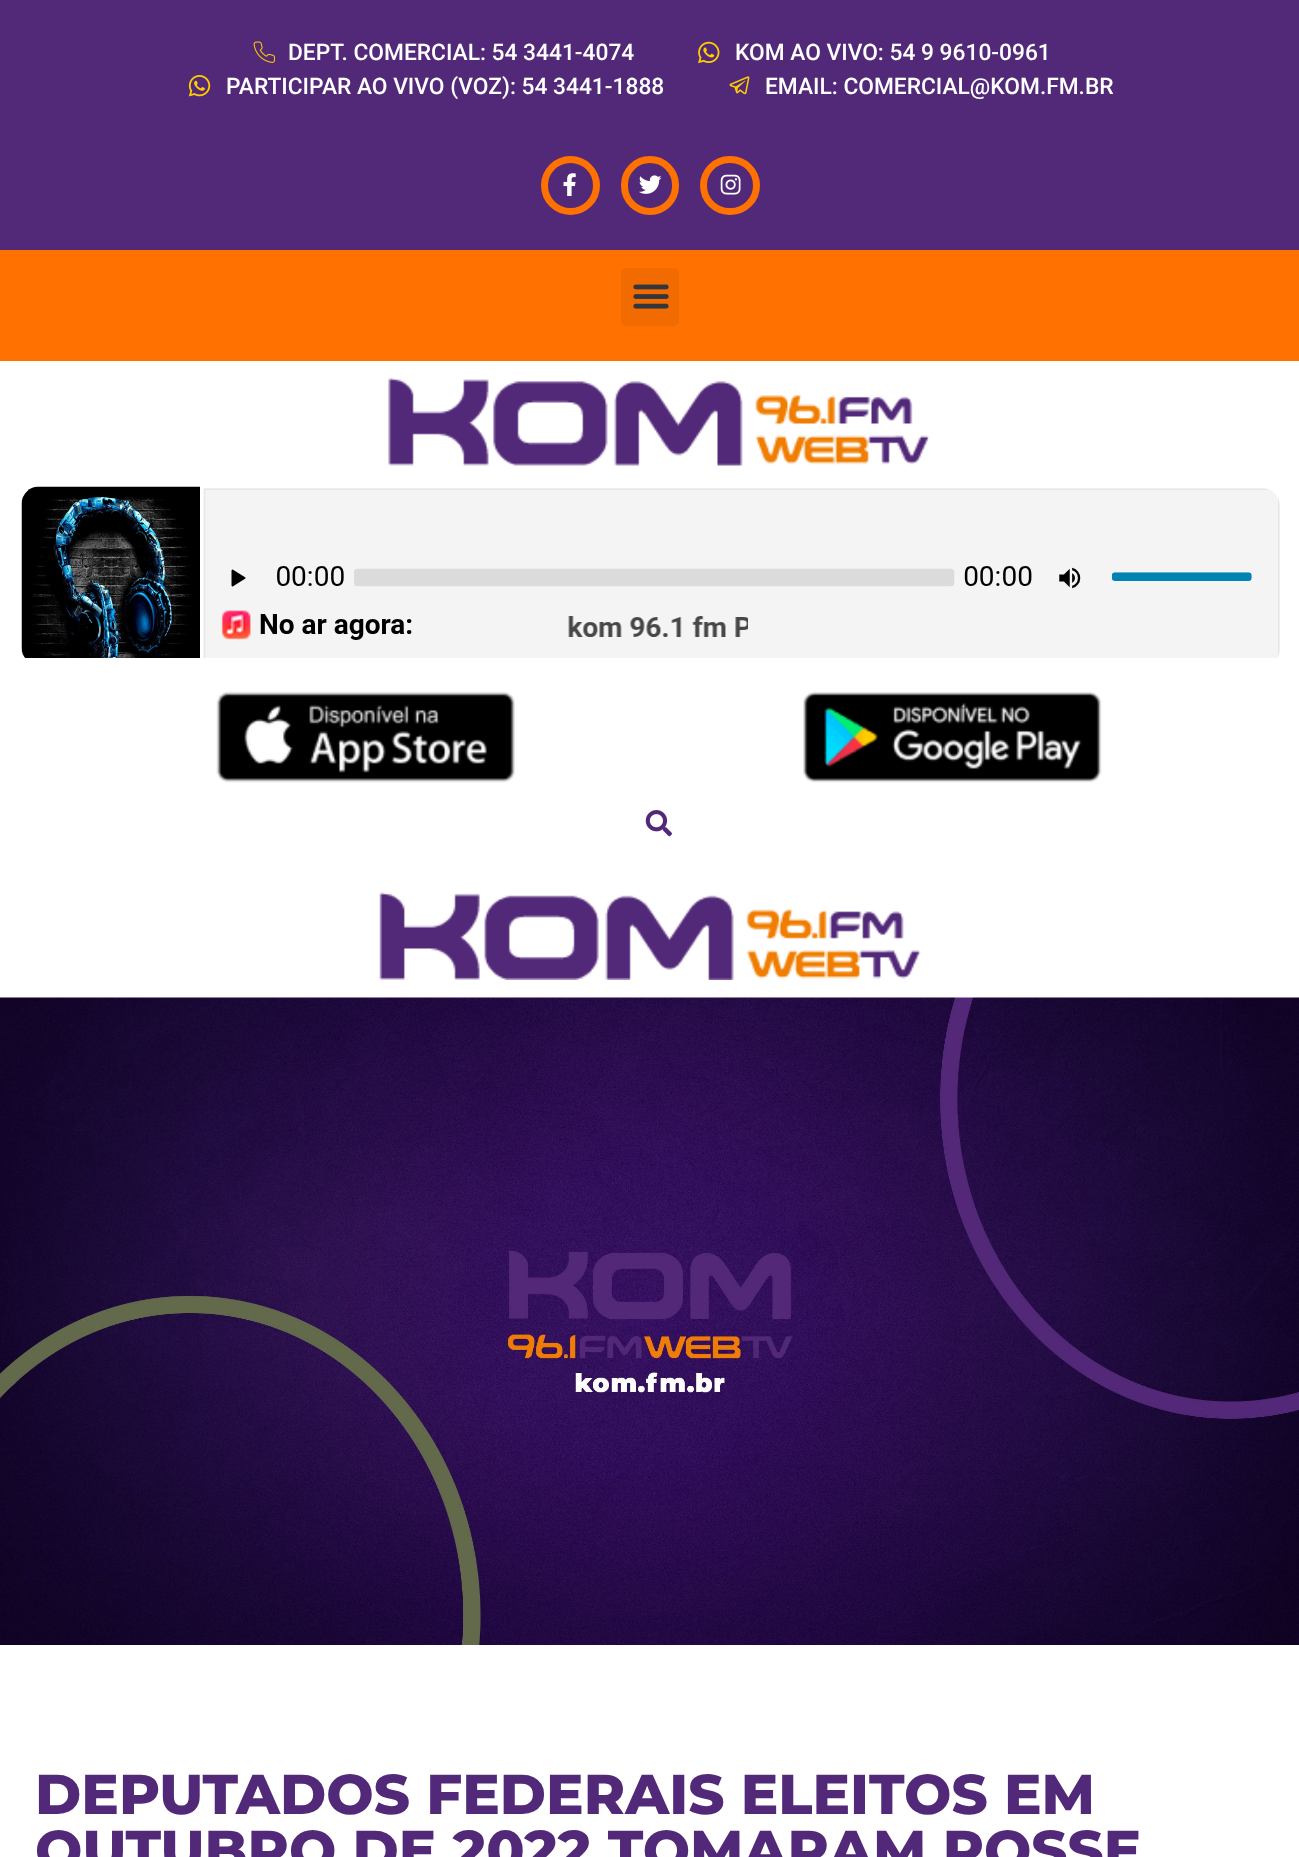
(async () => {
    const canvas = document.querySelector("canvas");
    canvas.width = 1299;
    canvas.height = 1857;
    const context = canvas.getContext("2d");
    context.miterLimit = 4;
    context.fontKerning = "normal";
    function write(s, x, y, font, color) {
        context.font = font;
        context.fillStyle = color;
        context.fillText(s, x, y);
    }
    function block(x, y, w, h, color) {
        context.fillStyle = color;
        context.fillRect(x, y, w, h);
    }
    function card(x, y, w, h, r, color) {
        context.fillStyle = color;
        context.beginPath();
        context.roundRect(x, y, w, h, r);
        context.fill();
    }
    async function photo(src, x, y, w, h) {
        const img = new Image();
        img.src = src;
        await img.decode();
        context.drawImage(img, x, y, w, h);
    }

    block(0, 0, 1299, 1857, "rgb(255, 255, 255)");
    block(0, 0, 1299, 250, "rgb(82, 40, 120)");
    await photo("media/1.png", 253, 41, 22, 22);
    write("DEPT. COMERCIAL: 54 3441-4074", 288, 60, "500 22.75px Roboto", "rgb(255, 255, 255)");
    await photo("media/2.png", 698, 41, 22, 23);
    write("KOM AO VIVO: 54 9 9610-0961", 735, 60, "500 22.75px Roboto", "rgb(255, 255, 255)");
    await photo("media/3.png", 188, 75, 23, 22);
    write("PARTICIPAR AO VIVO (VOZ): 54 3441-1888", 226, 94, "500 22.75px Roboto", "rgb(255, 255, 255)");
    await photo("media/4.png", 729, 76, 21, 19);
    write("EMAIL: COMERCIAL@KOM.FM.BR", 765, 94, "500 22.75px Roboto", "rgb(255, 255, 255)");
    context.beginPath();
    context.arc(570.5, 185.5, 26, 0, Math.PI * 2);
    context.strokeStyle = "rgb(255, 113, 0)";
    context.lineWidth = 7;
    context.stroke();
    await photo("media/5.png", 563, 173, 13, 23);
    context.beginPath();
    context.roundRect(624.5, 159.5, 51, 52, 25.5);
    context.stroke();
    await photo("media/6.png", 639, 175, 23, 19);
    context.beginPath();
    context.roundRect(703.5, 159.5, 53, 52, 26);
    context.stroke();
    await photo("media/7.png", 720, 174, 21, 21);
    block(0, 250, 1299, 111, "rgb(255, 113, 0)");
    card(621, 268, 58, 58, 5, "rgb(242, 107, 0)");
    await photo("media/8.png", 633, 284, 36, 25);
    await photo("media/9.png", 388, 378, 542, 88);
    await photo("media/10.png", 21, 486, 1259, 172);
    await photo("media/11.png", 216, 691, 299, 92);
    await photo("media/12.png", 803, 691, 299, 92);
    await photo("media/13.png", 645, 810, 27, 27);
    await photo("media/14.png", 379, 892, 542, 88);
    await photo("media/15.png", 0, 997, 1299, 648);
    write("DEPUTADOS FEDERAIS ELEITOS EM", 35, 1814, "800 56px Montserrat", "rgb(82, 40, 120)");
    write("OUTUBRO DE 2022 TOMARAM POSSE", 35, 1870, "800 56px Montserrat", "rgb(82, 40, 120)");
})();
